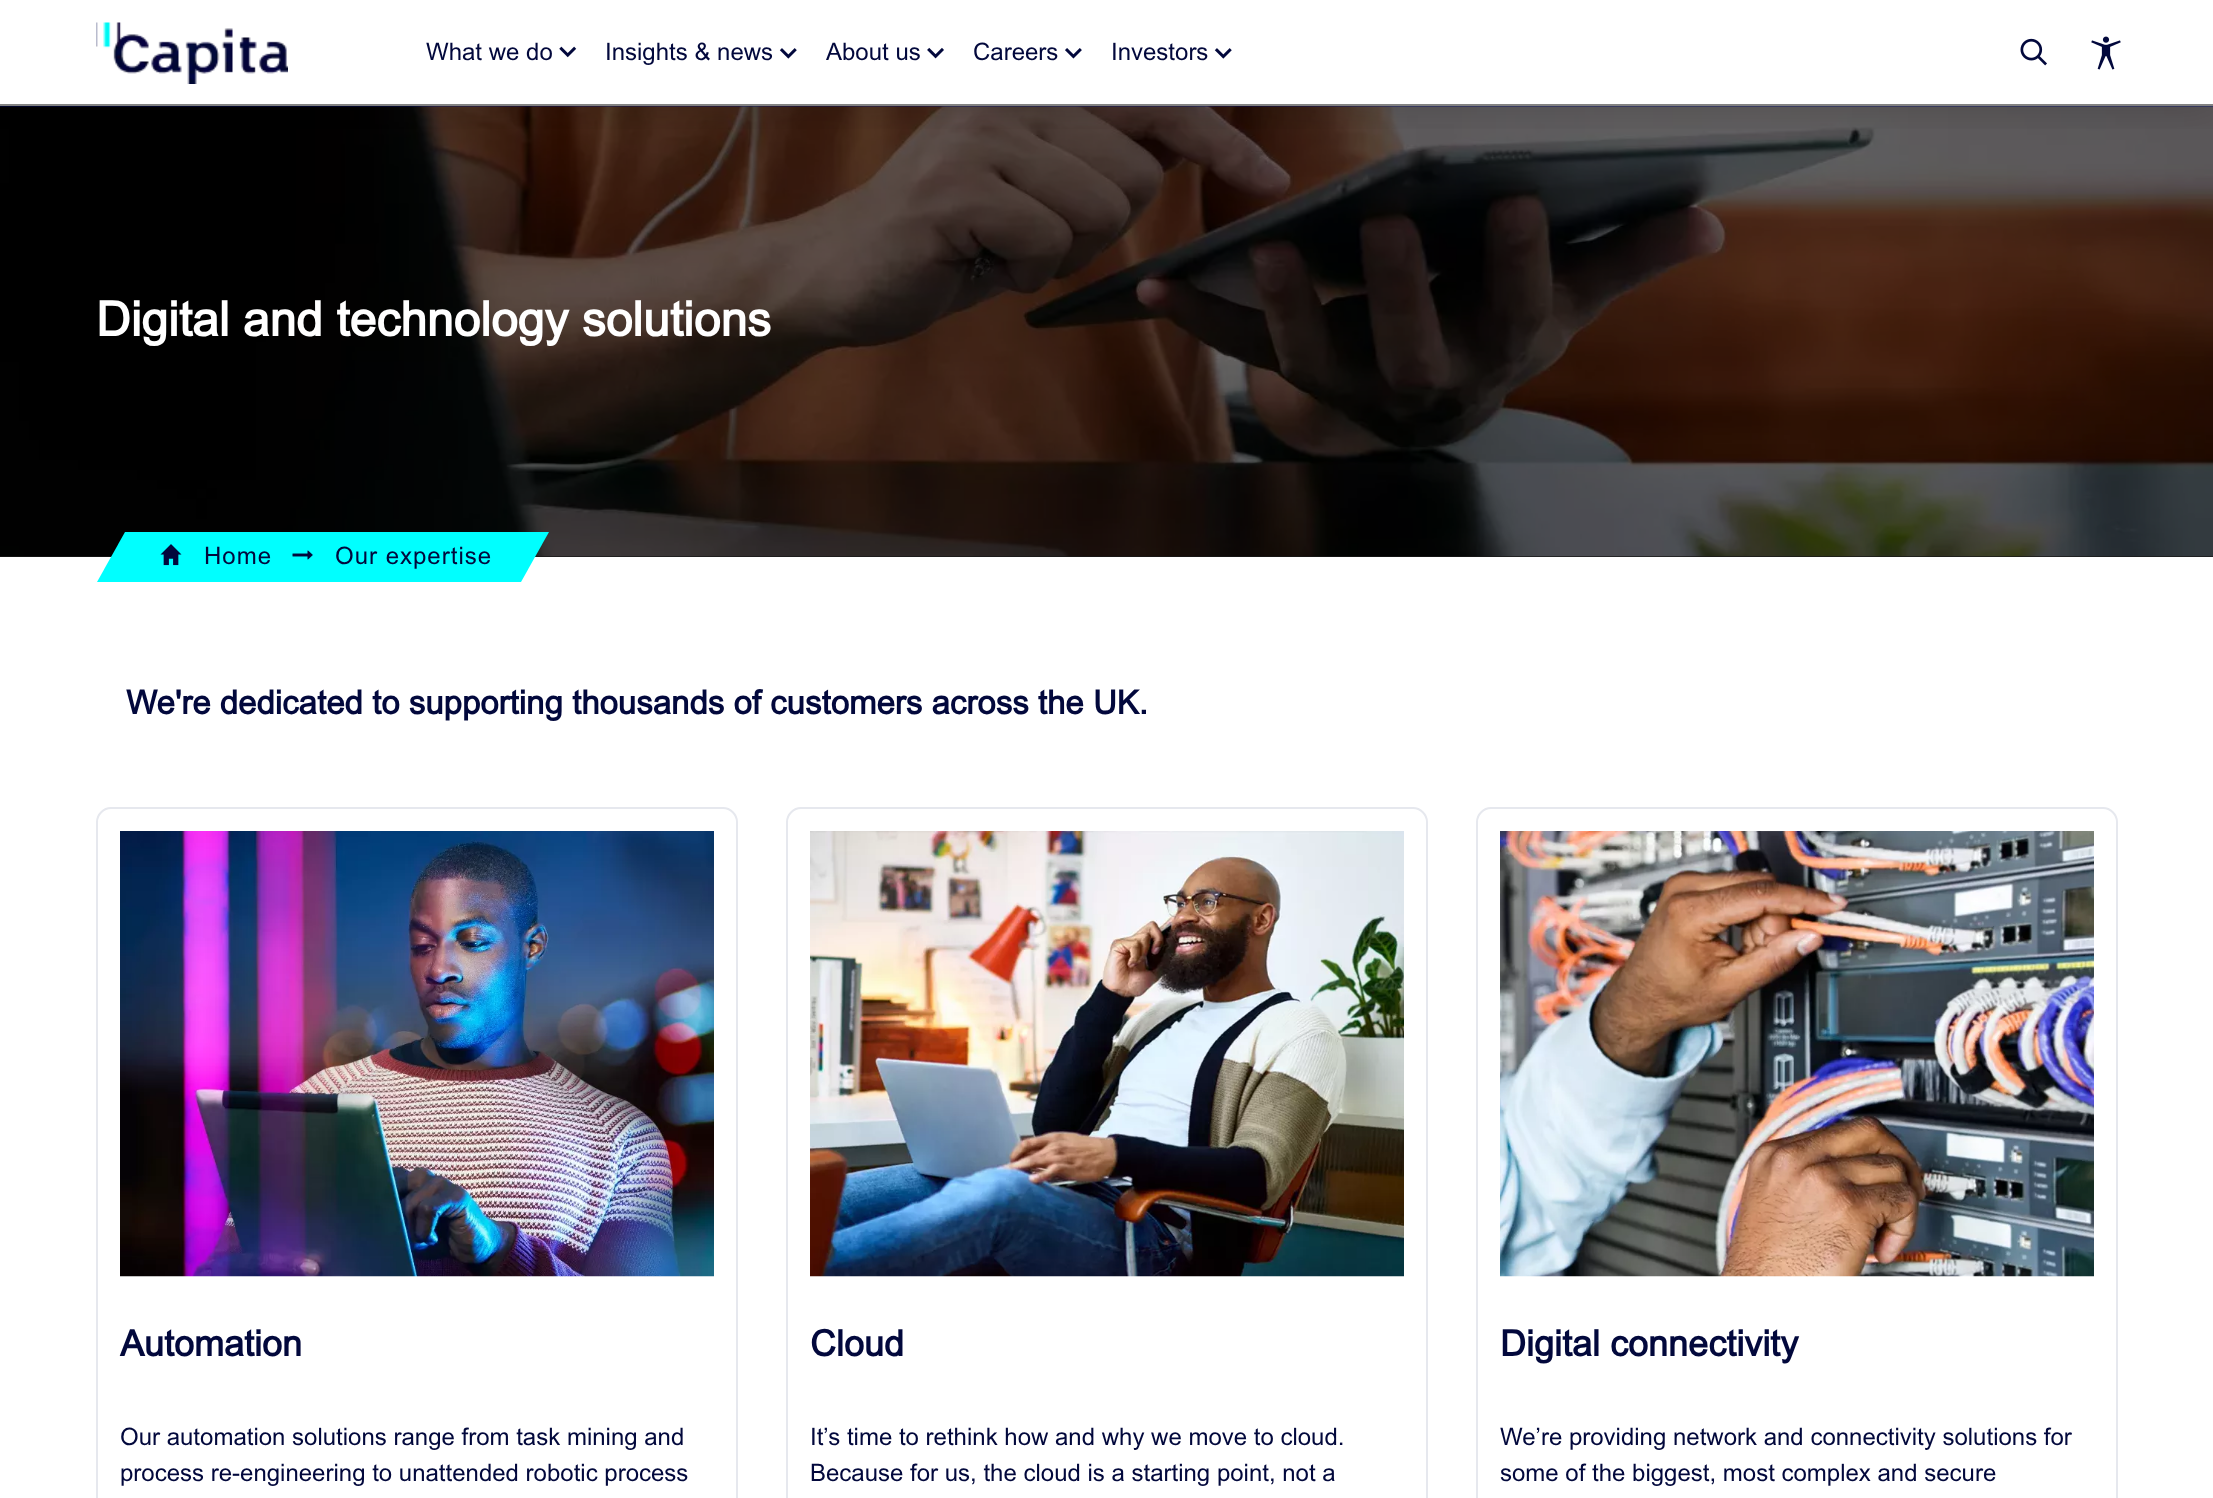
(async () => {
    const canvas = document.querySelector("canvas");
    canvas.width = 2213;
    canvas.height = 1498;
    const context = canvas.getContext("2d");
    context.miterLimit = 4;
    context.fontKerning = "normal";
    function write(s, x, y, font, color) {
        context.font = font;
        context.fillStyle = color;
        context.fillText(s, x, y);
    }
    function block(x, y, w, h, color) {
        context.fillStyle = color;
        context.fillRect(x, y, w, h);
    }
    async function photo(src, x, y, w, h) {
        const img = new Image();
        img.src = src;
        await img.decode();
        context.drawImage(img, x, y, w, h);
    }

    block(0, 0, 2213, 1498, "rgb(255, 255, 255)");
    block(0, 106, 2213, 1, "rgb(2, 8, 60)");
    block(0, 556, 2213, 1, "rgb(24, 24, 24)");
    await photo("media/9.png", 0, 106, 2213, 451);
    context.save();
    context.beginPath();
    context.rect(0, 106, 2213, 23);
    context.clip();
    context.fillStyle = "rgba(0, 0, 0, 0.16)";
    context.filter = "blur(19px)";
    context.beginPath();
    context.rect(2, 2, 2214, 105);
    context.fill();
    context.filter = "none";
    context.restore();
    block(0, 104, 2213, 2, "rgb(130, 130, 130)");
    await photo("media/1.png", 96, 22, 192, 62);
    write("What we do", 426, 60, "24px Arial", "rgb(2, 8, 60)");
    await photo("media/2.png", 559, 46, 18, 12);
    write("Insights & news", 605, 60, "24px Arial", "rgb(2, 8, 60)");
    await photo("media/3.png", 779, 48, 18, 11);
    write("About us", 826, 60, "24px Arial", "rgb(2, 8, 60)");
    await photo("media/4.png", 927, 47, 17, 12);
    write("Careers", 973, 60, "24px Arial", "rgb(2, 8, 60)");
    await photo("media/5.png", 1065, 48, 17, 11);
    write("Investors", 1111, 60, "24px Arial", "rgb(2, 8, 60)");
    await photo("media/6.png", 1214, 48, 18, 11);
    await photo("media/7.png", 2020, 38, 27, 28);
    await photo("media/8.png", 2091, 36, 30, 34);
    write("Digital and technology solutions", 96, 336, "bold 48px Arial", "rgb(255, 255, 255)");
    context.fillStyle = "rgb(0, 255, 255)";
    context.beginPath();
    context.moveTo(125, 532);
    context.lineTo(549, 532);
    context.lineTo(521, 582);
    context.lineTo(97, 582);
    context.closePath();
    context.fill();
    await photo("media/10.png", 160, 544, 22, 22);
    context.letterSpacing = "1px";
    write("Home", 204, 564, "24px Arial", "rgb(2, 8, 60)");
    await photo("media/11.png", 292, 550, 21, 10);
    write("Our expertise", 335, 564, "24px Arial", "rgb(2, 8, 60)");
    context.letterSpacing = "0px";
    write("We're dedicated to supporting thousands of customers across the UK.", 126, 714, "bold 33px Arial", "rgb(2, 8, 60)");
    context.beginPath();
    context.moveTo(111, 808);
    context.lineTo(723, 808);
    context.bezierCurveTo(730.5, 808, 737, 814.5, 737, 822);
    context.lineTo(737, 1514);
    context.lineTo(111, 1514);
    context.bezierCurveTo(103.5, 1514, 97, 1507.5, 97, 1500);
    context.lineTo(97, 822);
    context.bezierCurveTo(97, 814.5, 103.5, 808, 111, 808);
    context.closePath();
    context.strokeStyle = "rgb(230, 232, 238)";
    context.lineWidth = 2;
    context.stroke();
    await photo("media/12.png", 120, 831, 594, 446);
    write("Automation", 120, 1356, "bold 36px Arial", "rgb(2, 8, 60)");
    write("Our automation solutions range from task mining and", 120, 1445, "24px Arial", "rgb(2, 8, 60)");
    write("process re-engineering to unattended robotic process", 120, 1481, "24px Arial", "rgb(2, 8, 60)");
    context.beginPath();
    context.moveTo(801, 808);
    context.lineTo(1413, 808);
    context.bezierCurveTo(1420.5, 808, 1427, 814.5, 1427, 822);
    context.lineTo(1427, 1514);
    context.lineTo(801, 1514);
    context.bezierCurveTo(793.5, 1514, 787, 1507.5, 787, 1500);
    context.lineTo(787, 822);
    context.bezierCurveTo(787, 814.5, 793.5, 808, 801, 808);
    context.closePath();
    context.stroke();
    await photo("media/13.png", 810, 831, 594, 446);
    write("Cloud", 810, 1356, "bold 36px Arial", "rgb(2, 8, 60)");
    write("It’s time to rethink how and why we move to cloud.", 810, 1445, "24px Arial", "rgb(2, 8, 60)");
    write("Because for us, the cloud is a starting point, not a", 810, 1481, "24px Arial", "rgb(2, 8, 60)");
    context.beginPath();
    context.moveTo(1491, 808);
    context.lineTo(2103, 808);
    context.bezierCurveTo(2110.5, 808, 2117, 814.5, 2117, 822);
    context.lineTo(2117, 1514);
    context.lineTo(1491, 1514);
    context.bezierCurveTo(1483.5, 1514, 1477, 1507.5, 1477, 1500);
    context.lineTo(1477, 822);
    context.bezierCurveTo(1477, 814.5, 1483.5, 808, 1491, 808);
    context.closePath();
    context.stroke();
    await photo("media/14.png", 1500, 831, 594, 446);
    write("Digital connectivity", 1500, 1356, "bold 36px Arial", "rgb(2, 8, 60)");
    write("We’re providing network and connectivity solutions for", 1500, 1445, "24px Arial", "rgb(2, 8, 60)");
    write("some of the biggest, most complex and secure", 1500, 1481, "24px Arial", "rgb(2, 8, 60)");
})();
